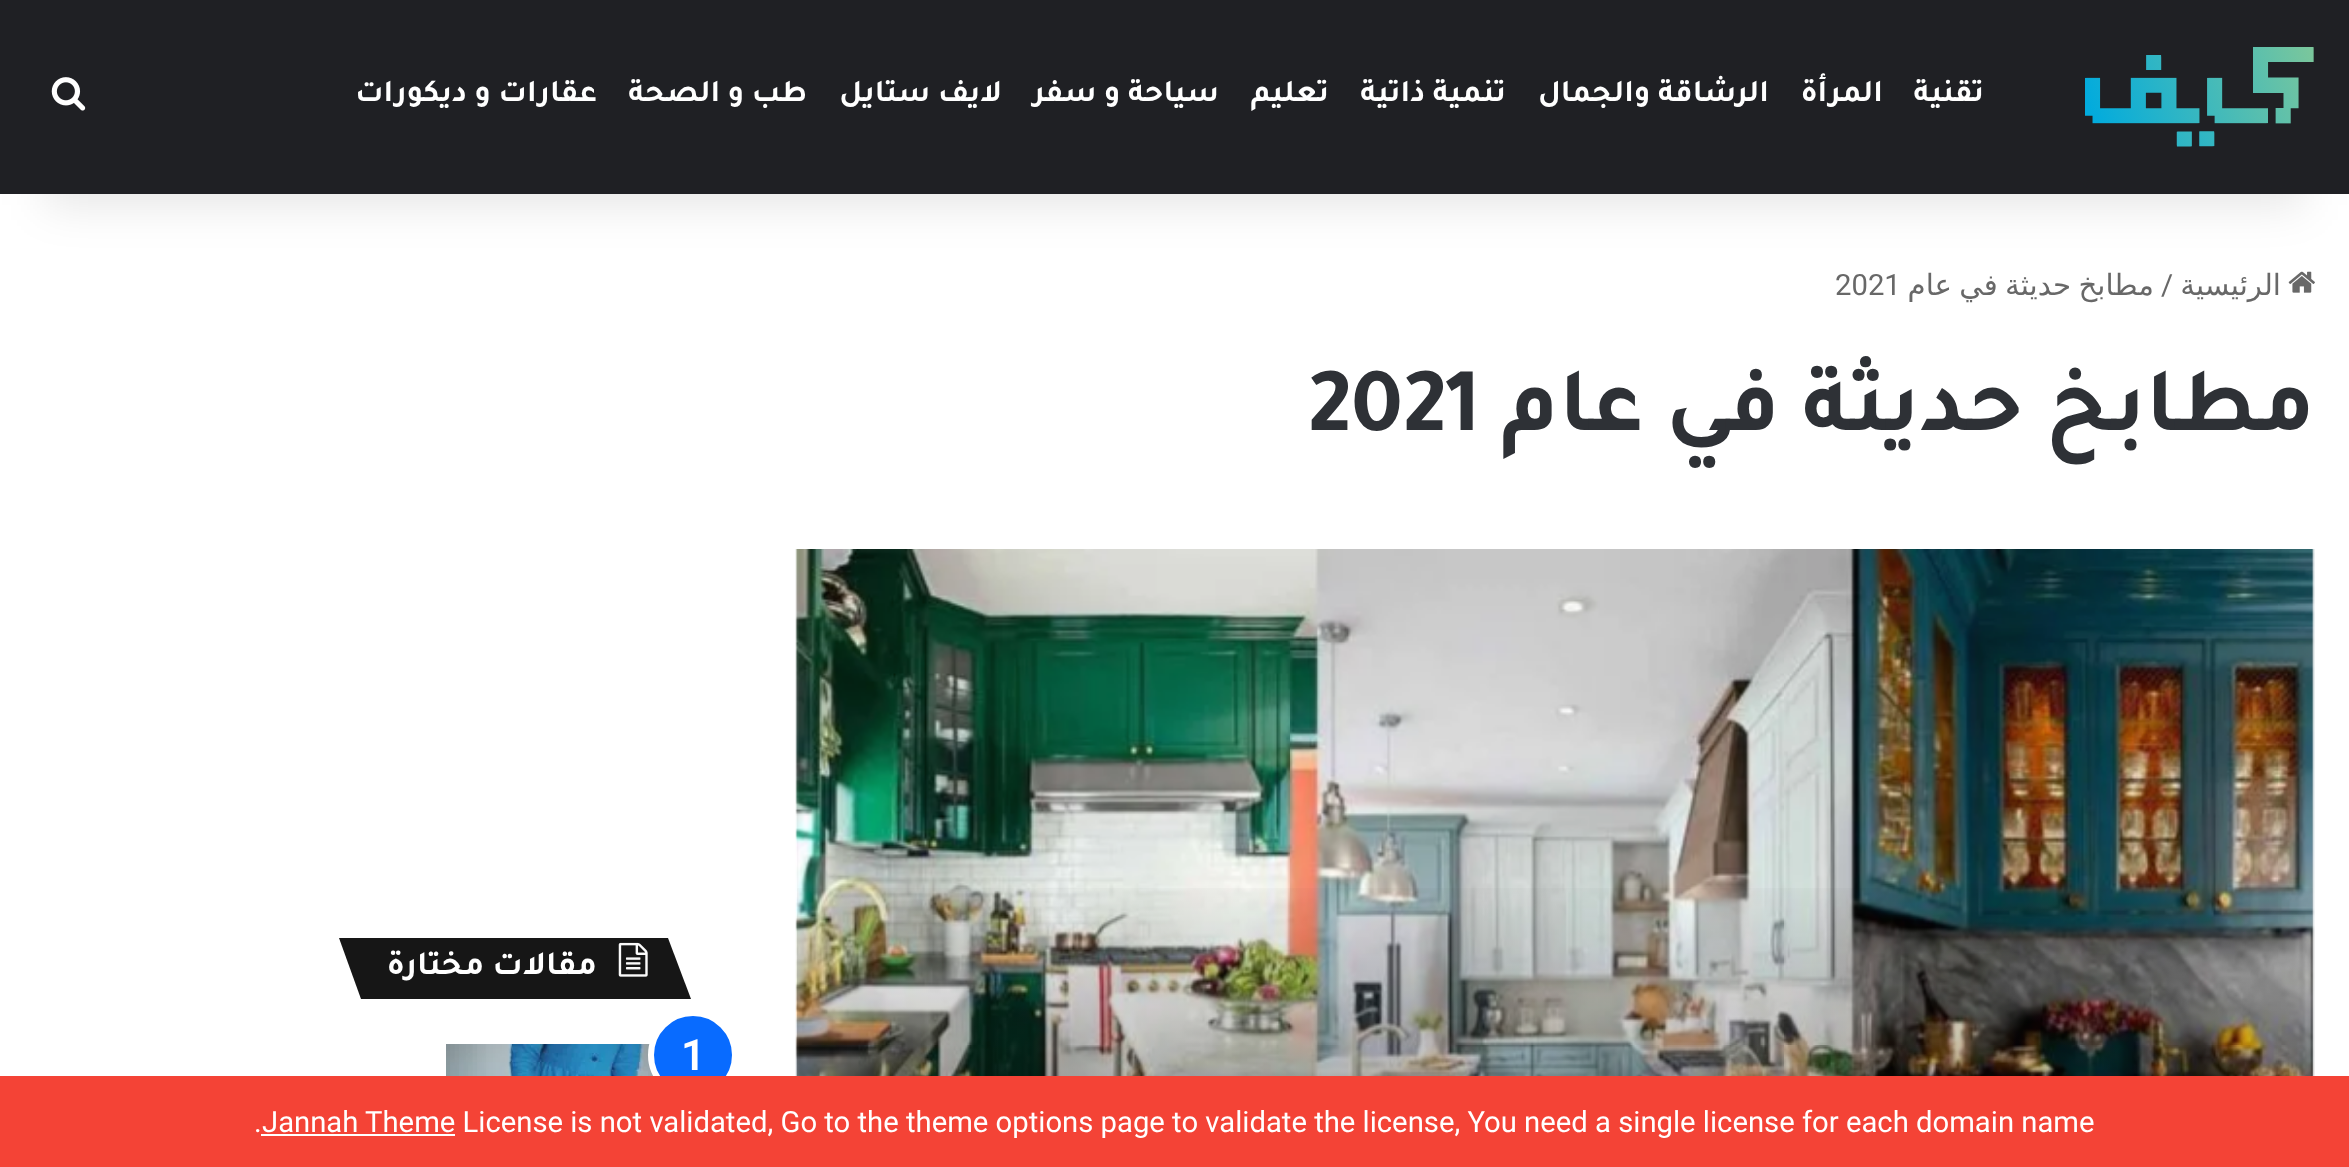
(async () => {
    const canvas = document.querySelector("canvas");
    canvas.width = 2349;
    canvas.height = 1167;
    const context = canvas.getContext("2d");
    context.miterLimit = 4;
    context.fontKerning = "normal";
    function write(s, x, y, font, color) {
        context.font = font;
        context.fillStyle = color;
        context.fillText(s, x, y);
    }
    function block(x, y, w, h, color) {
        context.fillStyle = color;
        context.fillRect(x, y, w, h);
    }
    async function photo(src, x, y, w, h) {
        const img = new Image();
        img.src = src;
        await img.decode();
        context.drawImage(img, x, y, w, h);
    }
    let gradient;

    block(0, 0, 2349, 1167, "rgb(255, 255, 255)");
    await photo("media/3.png", 2288, 271, 27, 22);
    context.fillStyle = "rgba(0, 0, 0, 0.1)";
    context.filter = "blur(22.5px)";
    context.beginPath();
    context.rect(45, 101, 2259, 104);
    context.fill();
    context.filter = "none";
    block(0, 0, 2349, 194, "rgb(31, 32, 36)");
    await photo("media/1.png", 51, 77, 35, 34);
    context.direction = "rtl";
    write("عقارات و ديكورات", 597, 101, "bold 31.5px Tajawal", "rgb(255, 255, 255)");
    write("طب و الصحة", 807, 101, "bold 31.5px Tajawal", "rgb(255, 255, 255)");
    write("لايف ستايل", 1002, 101, "bold 31.5px Tajawal", "rgb(255, 255, 255)");
    write("سياحة و سفر", 1219, 101, "bold 31.5px Tajawal", "rgb(255, 255, 255)");
    write("تعليم", 1329, 101, "bold 31.5px Tajawal", "rgb(255, 255, 255)");
    write("تنمية ذاتية", 1506, 101, "bold 31.5px Tajawal", "rgb(255, 255, 255)");
    write("الرشاقة والجمال", 1769, 101, "bold 31.5px Tajawal", "rgb(255, 255, 255)");
    write("المرأة", 1883, 101, "bold 31.5px Tajawal", "rgb(255, 255, 255)");
    write("تقنية", 1984, 101, "bold 31.5px Tajawal", "rgb(255, 255, 255)");
    await photo("media/2.png", 2085, 47, 229, 100);
    context.direction = "ltr";
    write("2021", 1835, 295, "29.25px Roboto", "rgb(104, 104, 104)");
    context.wordSpacing = "-2px";
    context.direction = "rtl";
    write("مطابخ حديثة في عام", 2154, 295, "29.25px DejaVu Sans", "rgb(104, 104, 104)");
    context.wordSpacing = "0px";
    context.direction = "ltr";
    write("/", 2161, 295, "29.25px Roboto", "rgb(104, 104, 104)");
    context.direction = "rtl";
    write("الرئيسية", 2281, 295, "29.25px DejaVu Sans", "rgb(104, 104, 104)");
    context.direction = "ltr";
    write("2021", 1308, 430, "bold 92.25px Tajawal", "rgb(46, 49, 54)");
    context.direction = "rtl";
    write("مطابخ حديثة في عام", 2315, 430, "bold 92.25px Tajawal", "rgb(46, 49, 54)");
    block(797, 549, 1516, 527, "rgb(205, 205, 205)");
    await photo("media/4.png", 795, 549, 1520, 527);
    gradient = context.createLinearGradient(1555, 871, 1555, 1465);
    gradient.addColorStop(0, "rgba(3, 3, 3, 0)");
    gradient.addColorStop(1, "rgba(3, 3, 3, 0.75)");
    context.fillStyle = gradient;
    context.fillRect(797, 888, 1516, 188);
    context.fillStyle = "rgb(22, 22, 22)";
    context.beginPath();
    context.moveTo(339, 938);
    context.lineTo(668, 938);
    context.lineTo(691, 999);
    context.lineTo(361, 999);
    context.closePath();
    context.fill();
    write("مقالات مختارة", 597, 974, "bold 33.75px Tajawal", "rgb(255, 255, 255)");
    await photo("media/5.png", 618, 942, 30, 35);
    await photo("media/6.png", 446, 1044, 208, 32);
    context.fillStyle = "rgb(8, 107, 255)";
    context.beginPath();
    context.arc(693, 1055, 42, 0, Math.PI * 2);
    context.fill();
    context.strokeStyle = "rgb(255, 255, 255)";
    context.lineWidth = 6;
    context.stroke();
    context.direction = "ltr";
    write("1", 681, 1070, "600 43px Roboto", "rgb(255, 255, 255)");
    block(0, 1076, 2349, 91, "rgb(244, 67, 54)");
    write(".", 254, 1132, "29.25px Roboto", "rgb(255, 255, 255)");
    block(261, 1134, 194, 2, "rgb(255, 255, 255)");
    write("Jannah Theme License is not validated, Go to the theme options page to validate the license, You need a single license for each domain name", 262, 1132, "29.25px Roboto", "rgb(255, 255, 255)");
})();
